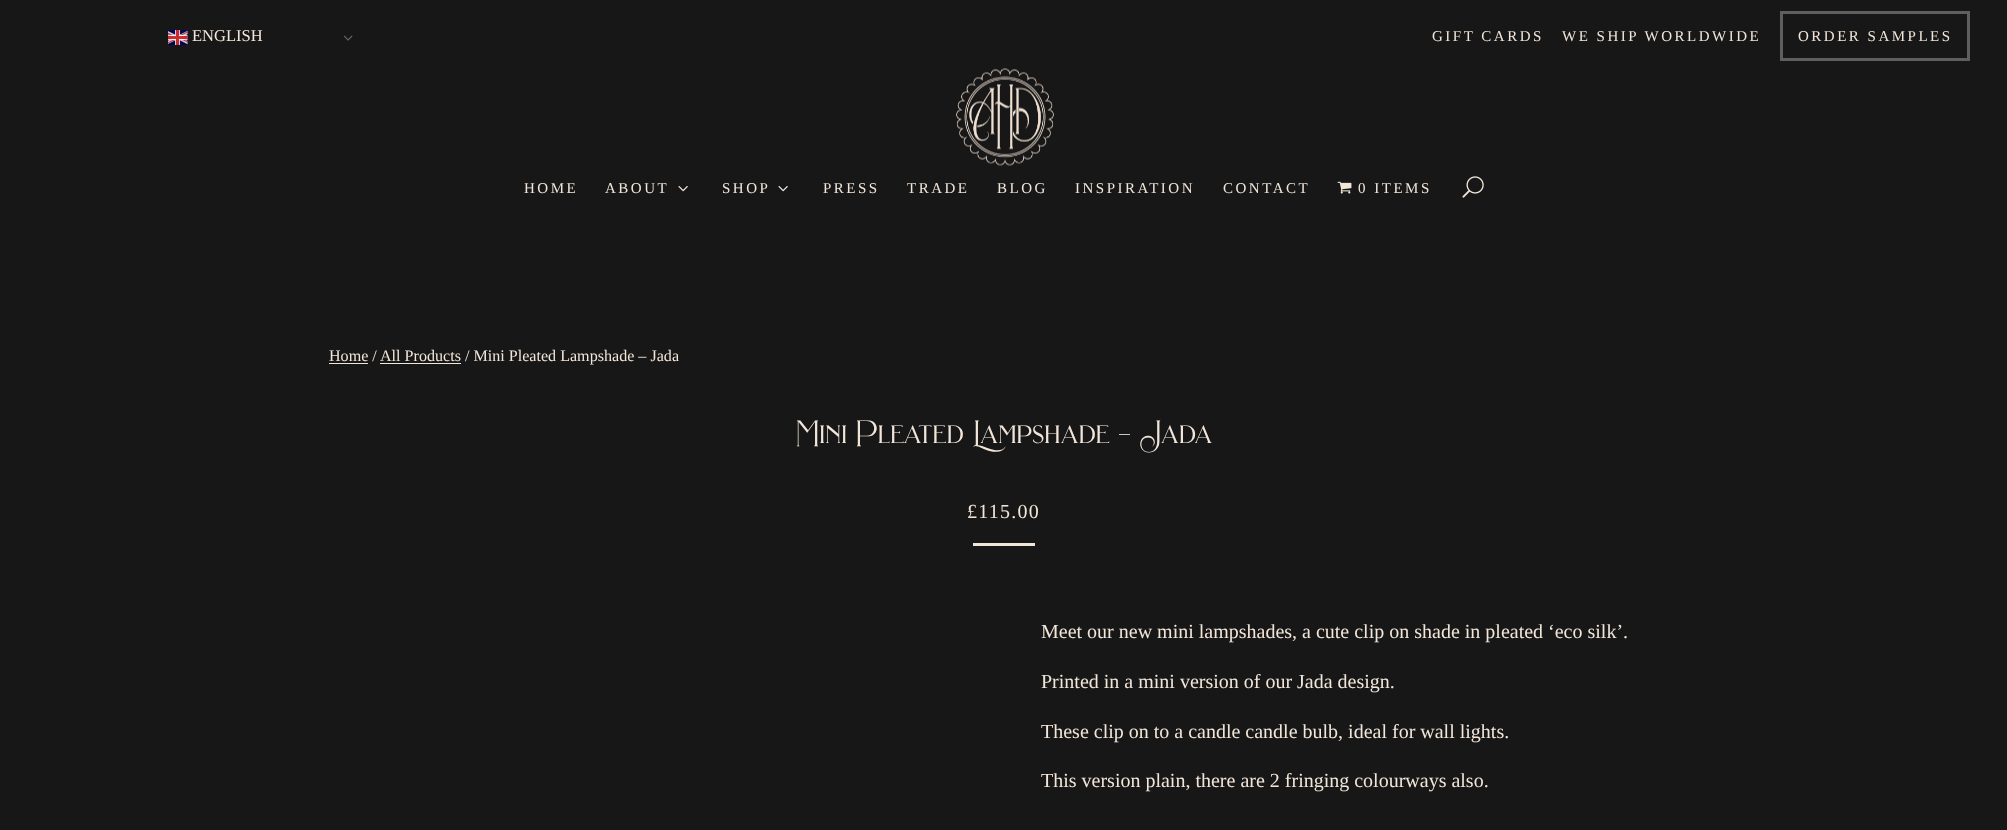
(async () => {
    const canvas = document.querySelector("canvas");
    canvas.width = 2007;
    canvas.height = 830;
    const context = canvas.getContext("2d");
    context.miterLimit = 4;
    context.fontKerning = "normal";
    function write(s, x, y, font, color) {
        context.font = font;
        context.fillStyle = color;
        context.fillText(s, x, y);
    }
    function block(x, y, w, h, color) {
        context.fillStyle = color;
        context.fillRect(x, y, w, h);
    }
    async function photo(src, x, y, w, h) {
        const img = new Image();
        img.src = src;
        await img.decode();
        context.drawImage(img, x, y, w, h);
    }

    block(0, 0, 2007, 830, "rgb(23, 23, 23)");
    await photo("media/1.png", 168, 30, 20, 15);
    write("ENGLISH", 192, 41, "16.5px Liberation Serif", "rgb(242, 230, 218)");
    await photo("media/2.png", 344, 35, 9, 6);
    context.letterSpacing = "2.5px";
    write("GIFT CARDS", 1432, 41, "15px Liberation Serif", "rgb(242, 230, 218)");
    write("WE SHIP WORLDWIDE", 1562, 41, "15px Liberation Serif", "rgb(242, 230, 218)");
    context.strokeStyle = "rgb(95, 95, 95)";
    context.lineWidth = 3;
    context.strokeRect(1781.5, 12.5, 187, 47);
    write("ORDER SAMPLES", 1798, 41, "15px Liberation Serif", "rgb(242, 230, 218)");
    await photo("media/3.png", 956, 68, 98, 98);
    write("HOME", 524, 193, "15px Liberation Serif", "rgb(242, 230, 218)");
    write("ABOUT", 605, 193, "15px Liberation Serif", "rgb(242, 230, 218)");
    await photo("media/4.png", 678, 186, 10, 6);
    write("SHOP", 722, 193, "15px Liberation Serif", "rgb(242, 230, 218)");
    await photo("media/4.png", 778, 186, 10, 6);
    write("PRESS", 823, 193, "15px Liberation Serif", "rgb(242, 230, 218)");
    write("TRADE", 907, 193, "15px Liberation Serif", "rgb(242, 230, 218)");
    write("BLOG", 997, 193, "15px Liberation Serif", "rgb(242, 230, 218)");
    write("INSPIRATION", 1075, 193, "15px Liberation Serif", "rgb(242, 230, 218)");
    write("CONTACT", 1223, 193, "15px Liberation Serif", "rgb(242, 230, 218)");
    await photo("media/5.png", 1337, 181, 15, 13);
    write("0 ITEMS", 1358, 193, "15px Liberation Serif", "rgb(242, 230, 218)");
    await photo("media/6.png", 1462, 176, 22, 22);
    context.letterSpacing = "0px";
    write("Home /", 329, 361, "16.1px Liberation Serif", "rgb(242, 230, 218)");
    block(329, 363, 39, 1, "rgb(242, 230, 218)");
    block(380, 363, 81, 1, "rgb(242, 230, 218)");
    write("All Products / Mini Pleated Lampshade – Jada", 380, 361, "16.1px Liberation Serif", "rgb(242, 230, 218)");
    write("Mini Pleated Lampshade – Jada", 796, 443, "25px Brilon", "rgb(242, 230, 218)");
    context.letterSpacing = "1.25px";
    write("£115.00", 967, 518, "20px Liberation Serif", "rgb(242, 230, 218)");
    block(973, 543, 62, 3, "rgb(242, 230, 218)");
    context.letterSpacing = "0px";
    write("Meet our new mini lampshades, a cute clip on shade in pleated ‘eco silk’.", 1041, 638, "20px Liberation Serif", "rgb(242, 230, 218)");
    write("Printed in a mini version of our Jada design.", 1041, 688, "20px Liberation Serif", "rgb(242, 230, 218)");
    write("These clip on to a candle candle bulb, ideal for wall lights.", 1041, 738, "20px Liberation Serif", "rgb(242, 230, 218)");
    write("This version plain, there are 2 fringing colourways also.", 1041, 787, "20px Liberation Serif", "rgb(242, 230, 218)");
})();
